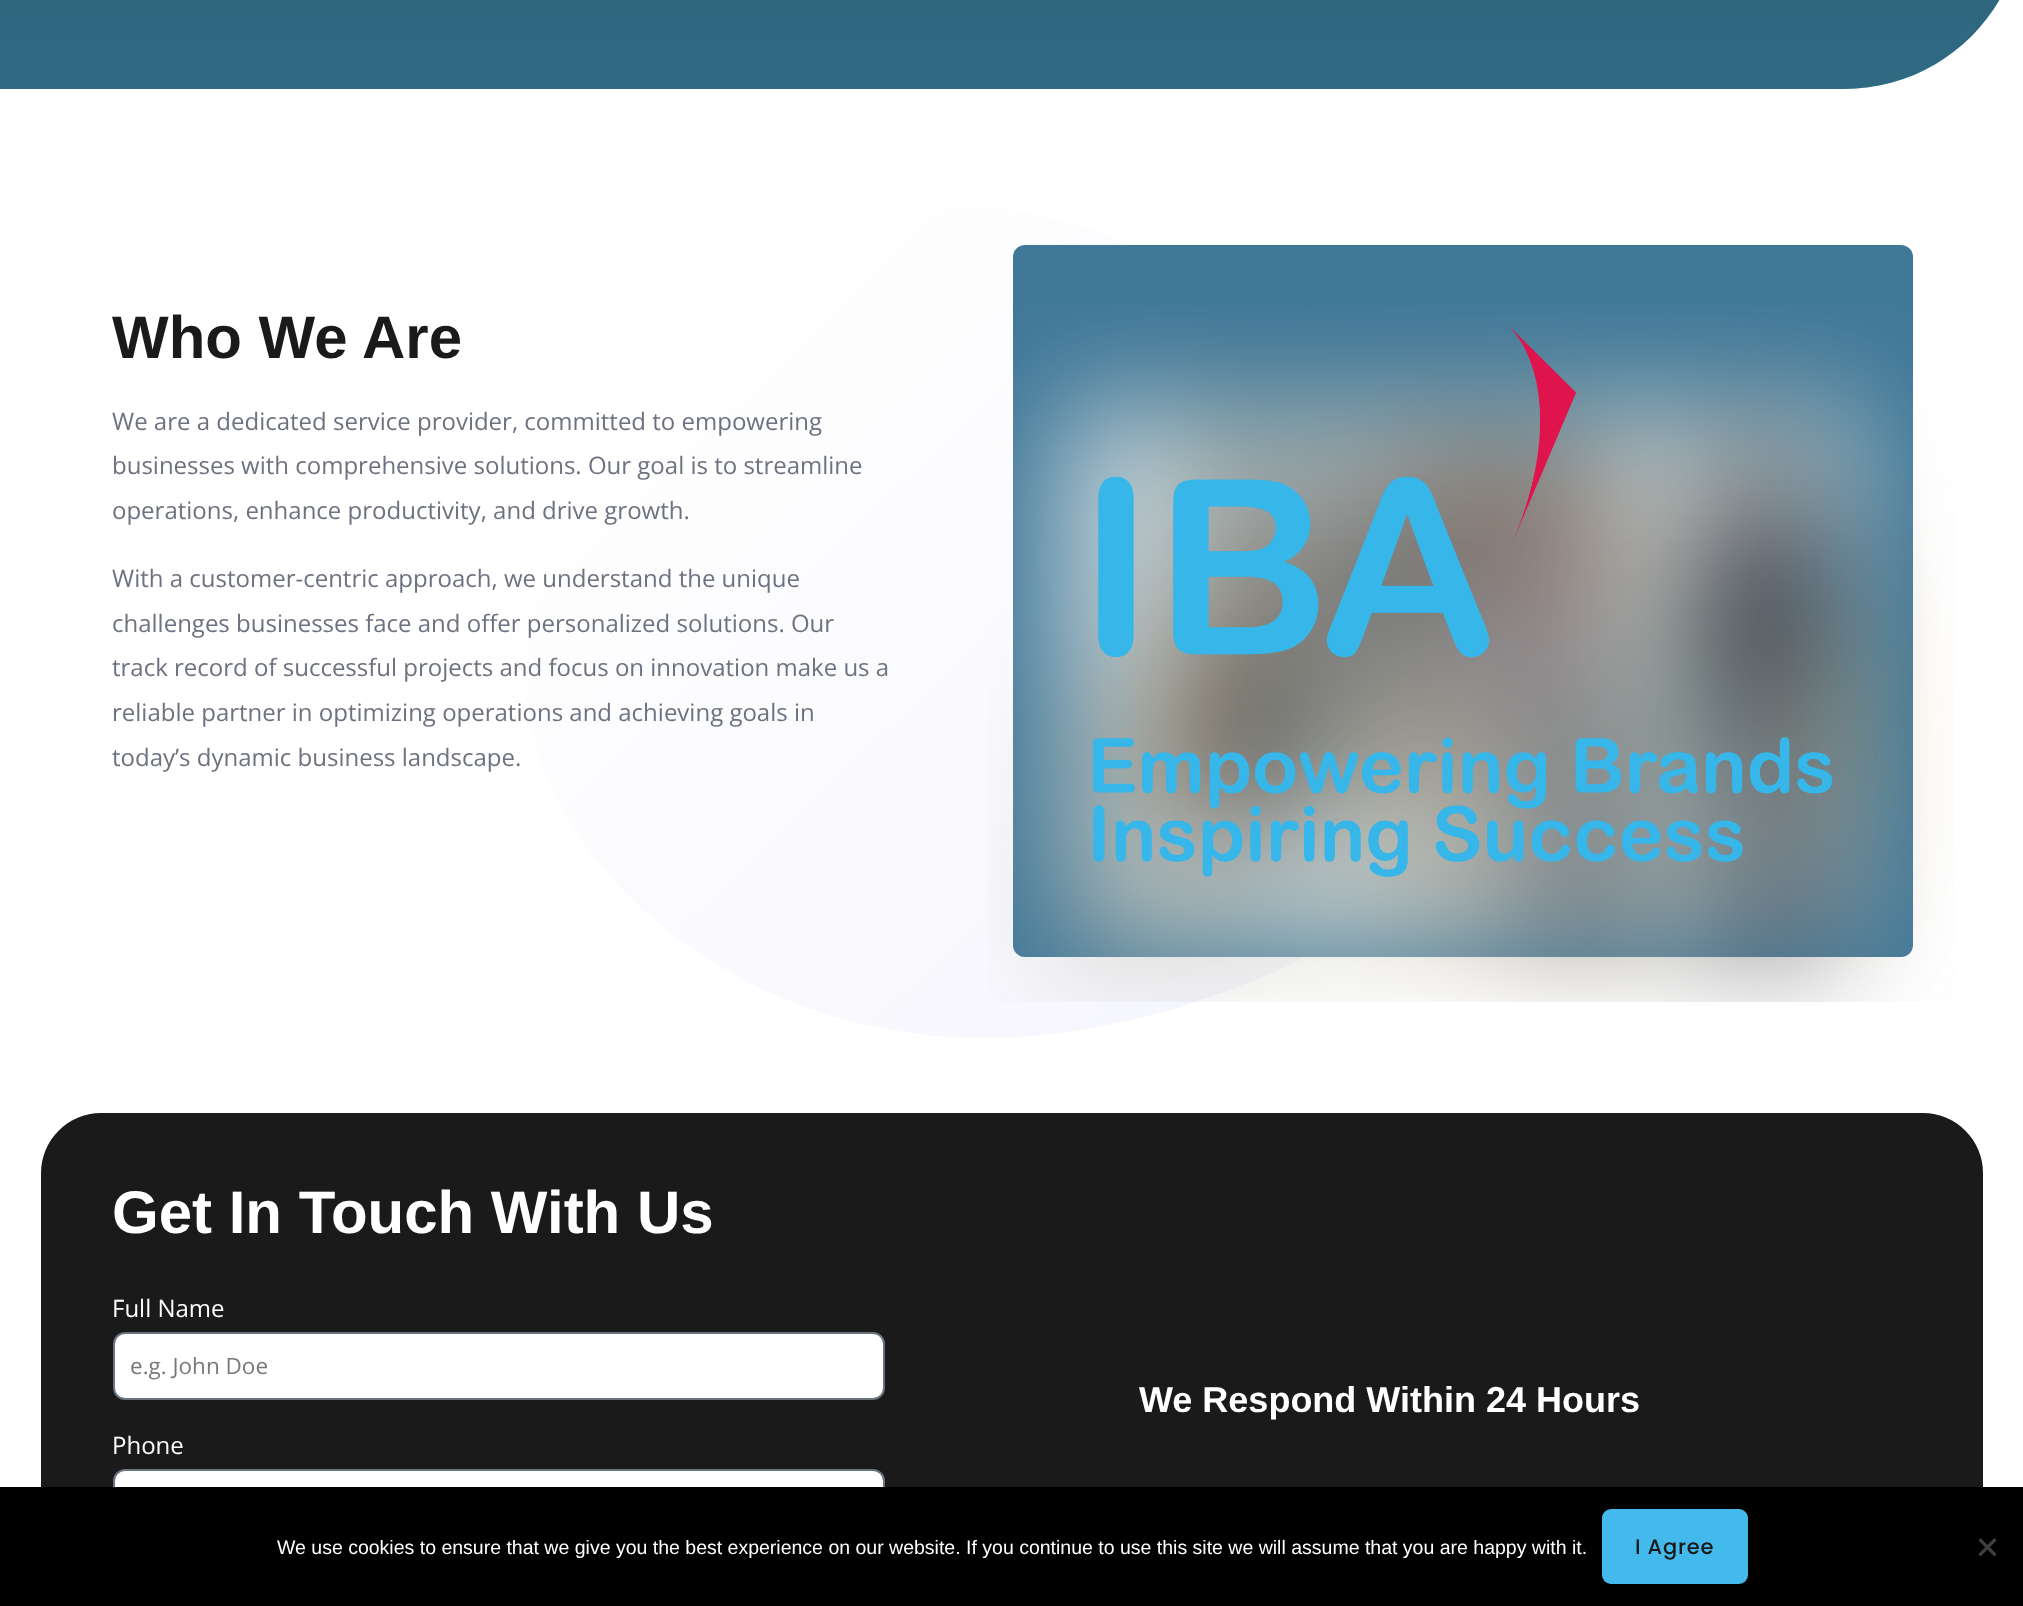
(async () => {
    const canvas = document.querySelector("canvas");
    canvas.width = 2023;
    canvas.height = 1606;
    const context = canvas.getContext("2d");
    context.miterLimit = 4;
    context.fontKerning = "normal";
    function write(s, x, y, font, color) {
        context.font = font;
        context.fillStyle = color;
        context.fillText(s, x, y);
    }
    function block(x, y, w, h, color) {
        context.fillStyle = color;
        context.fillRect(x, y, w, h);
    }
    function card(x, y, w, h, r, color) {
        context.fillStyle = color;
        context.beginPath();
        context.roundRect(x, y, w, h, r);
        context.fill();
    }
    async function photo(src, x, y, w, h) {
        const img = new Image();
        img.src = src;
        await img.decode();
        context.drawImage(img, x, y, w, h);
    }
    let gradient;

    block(0, 0, 2023, 1606, "rgb(255, 255, 255)");
    gradient = context.createLinearGradient(1012, -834, 1012, 89);
    gradient.addColorStop(0, "rgb(64, 120, 152)");
    gradient.addColorStop(1, "rgb(68, 186, 236)");
    context.fillStyle = gradient;
    context.beginPath();
    context.moveTo(0, -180);
    context.lineTo(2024, -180);
    context.lineTo(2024, -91);
    context.bezierCurveTo(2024, 8.5, 1943.5, 89, 1844, 89);
    context.lineTo(0, 89);
    context.closePath();
    context.fill();
    context.fillStyle = "rgba(26, 26, 26, 0.5)";
    context.beginPath();
    context.moveTo(0, -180);
    context.lineTo(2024, -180);
    context.lineTo(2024, -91);
    context.bezierCurveTo(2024, 8.5, 1943.5, 89, 1844, 89);
    context.lineTo(0, 89);
    context.closePath();
    context.fill();
    gradient = context.createLinearGradient(725, 266, 1372, 941);
    gradient.addColorStop(0, "rgb(255, 255, 255)");
    gradient.addColorStop(1, "rgb(245, 246, 253)");
    context.fillStyle = gradient;
    context.beginPath();
    context.moveTo(1291, 347);
    context.bezierCurveTo(1418, 457, 1526, 630, 1490, 764);
    context.bezierCurveTo(1455, 897, 1274, 991, 1117, 1023);
    context.bezierCurveTo(961, 1057, 828, 1030, 725, 969);
    context.bezierCurveTo(621, 909, 546, 815, 530, 717);
    context.bezierCurveTo(515, 618, 558, 515, 625, 419);
    context.bezierCurveTo(692, 322, 783, 233, 902, 212);
    context.bezierCurveTo(1020, 191, 1164, 237, 1291, 347);
    context.closePath();
    context.fill();
    write("Who We Are", 112, 358, "bold 60px Liberation Sans", "rgb(26, 26, 26)");
    write("We are a dedicated service provider, committed to empowering", 112, 430, "24px Open Sans", "rgb(110, 113, 128)");
    write("businesses with comprehensive solutions. Our goal is to streamline", 112, 474, "24px Open Sans", "rgb(110, 113, 128)");
    write("operations, enhance productivity, and drive growth.", 112, 519, "24px Open Sans", "rgb(110, 113, 128)");
    write("With a customer-centric approach, we understand the unique", 112, 587, "24px Open Sans", "rgb(110, 113, 128)");
    write("challenges businesses face and offer personalized solutions. Our", 112, 632, "24px Open Sans", "rgb(110, 113, 128)");
    write("track record of successful projects and focus on innovation make us a", 112, 676, "24px Open Sans", "rgb(110, 113, 128)");
    write("reliable partner in optimizing operations and achieving goals in", 112, 721, "24px Open Sans", "rgb(110, 113, 128)");
    write("today’s dynamic business landscape.", 112, 766, "24px Open Sans", "rgb(110, 113, 128)");
    card(1013, 245, 900, 712, 12, "rgb(64, 120, 152)");
    await photo("media/1.png", 988, 303, 967, 699);
    await photo("media/2.png", 1093, 325, 739, 552);
    context.fillStyle = "rgb(26, 26, 26)";
    context.beginPath();
    context.moveTo(101, 1113);
    context.lineTo(1923, 1113);
    context.bezierCurveTo(1956, 1113, 1983, 1140, 1983, 1173);
    context.lineTo(1983, 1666);
    context.lineTo(41, 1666);
    context.lineTo(41, 1173);
    context.bezierCurveTo(41, 1140, 68, 1113, 101, 1113);
    context.closePath();
    context.fill();
    write("Get In Touch With Us", 112, 1233, "bold 60px Liberation Sans", "rgb(255, 255, 255)");
    write("Full Name", 112, 1317, "24px Open Sans", "rgb(255, 255, 255)");
    context.beginPath();
    context.roundRect(114, 1333, 770, 66, 11);
    context.fill();
    context.strokeStyle = "rgb(105, 114, 125)";
    context.lineWidth = 2;
    context.stroke();
    write("e.g. John Doe", 130, 1374, "22.5px Open Sans", "rgb(121, 122, 124)");
    write("Phone", 112, 1454, "24px Open Sans", "rgb(255, 255, 255)");
    context.beginPath();
    context.roundRect(114, 1470, 770, 65, 11);
    context.fill();
    context.stroke();
    write("We Respond Within 24 Hours", 1139, 1412, "bold 36px Liberation Sans", "rgb(255, 255, 255)");
    block(0, 1487, 2023, 119, "rgb(0, 0, 0)");
    write("We use cookies to ensure that we give you the best experience on our website. If you continue to use this site we will assume that you are happy with it.", 277, 1554, "19.5px Liberation Sans", "rgb(255, 255, 255)");
    card(1602, 1509, 146, 75, 9, "rgb(68, 186, 236)");
    context.letterSpacing = "0.75px";
    write("I Agree", 1635, 1554, "500 21px Poppins", "rgb(26, 26, 26)");
    context.fillStyle = "rgb(64, 64, 64)";
    context.beginPath();
    context.moveTo(1994.5, 1538);
    context.lineTo(1996.5, 1540.5);
    context.lineTo(1980.5, 1556.5);
    context.lineTo(1978.5, 1554);
    context.closePath();
    context.fill();
    context.beginPath();
    context.moveTo(1978.5, 1540.5);
    context.lineTo(1980.5, 1538);
    context.lineTo(1996.5, 1554);
    context.lineTo(1994.5, 1556.5);
    context.closePath();
    context.fill();
})();
